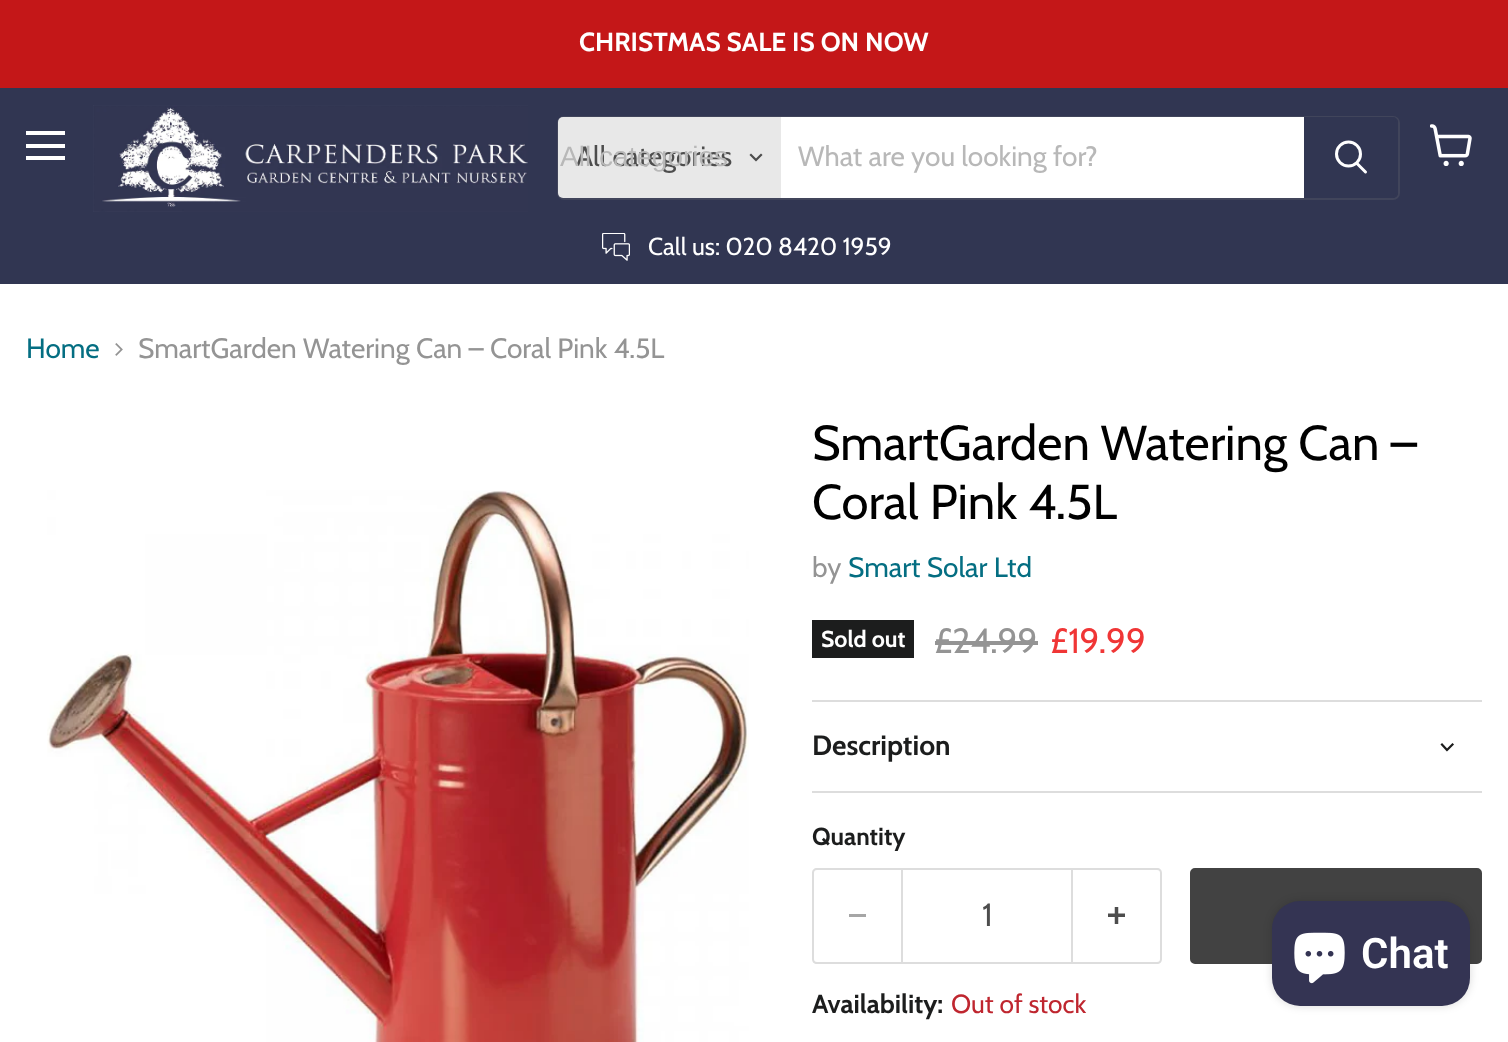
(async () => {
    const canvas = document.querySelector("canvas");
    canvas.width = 1508;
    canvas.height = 1042;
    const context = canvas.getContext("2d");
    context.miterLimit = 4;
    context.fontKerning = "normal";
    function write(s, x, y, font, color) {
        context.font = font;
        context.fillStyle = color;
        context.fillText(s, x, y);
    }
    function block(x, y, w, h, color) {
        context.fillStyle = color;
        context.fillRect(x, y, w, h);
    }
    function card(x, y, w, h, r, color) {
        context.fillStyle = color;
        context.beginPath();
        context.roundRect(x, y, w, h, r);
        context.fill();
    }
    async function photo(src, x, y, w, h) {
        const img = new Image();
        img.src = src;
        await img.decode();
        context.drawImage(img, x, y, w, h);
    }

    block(0, 0, 1508, 1042, "rgb(255, 255, 255)");
    block(0, 0, 1508, 88, "rgb(196, 23, 24)");
    write("CHRISTMAS SALE IS ON NOW", 579, 51, "bold 26.25px Cabin", "rgb(255, 255, 255)");
    block(0, 88, 1508, 196, "rgb(49, 54, 82)");
    block(26, 131, 39, 4, "rgb(255, 255, 255)");
    block(26, 144, 39, 4, "rgb(255, 255, 255)");
    block(26, 156, 39, 4, "rgb(255, 255, 255)");
    await photo("media/1.png", 93, 105, 435, 107);
    context.beginPath();
    context.roundRect(558, 117, 841, 82, 6);
    context.strokeStyle = "rgba(128, 128, 128, 0.2)";
    context.lineWidth = 2;
    context.stroke();
    context.fillStyle = "rgb(232, 232, 232)";
    context.beginPath();
    context.roundRect(558, 117, 223, 81, [5, 0, 0, 5]);
    context.fill();
    write("All categories", 576, 166, "28px Cabin", "rgb(77, 77, 77)");
    write("All categories", 560, 166, "28px Liberation Sans", "rgb(184, 184, 184)");
    context.beginPath();
    context.moveTo(756, 160);
    context.lineTo(761, 155);
    context.moveTo(756, 160);
    context.lineTo(751, 155);
    context.strokeStyle = "rgb(77, 77, 77)";
    context.lineWidth = 2.2;
    context.lineCap = "square";
    context.stroke();
    block(781, 117, 523, 81, "rgb(255, 255, 255)");
    write("What are you looking for?", 798, 166, "28px Cabin", "rgb(184, 184, 184)");
    context.fillStyle = "rgb(49, 54, 82)";
    context.beginPath();
    context.roundRect(1305, 118, 92, 79, [0, 4, 4, 0]);
    context.fill();
    context.strokeStyle = "rgb(49, 54, 82)";
    context.lineWidth = 2;
    context.stroke();
    context.beginPath();
    context.moveTo(1365.5, 172);
    context.lineTo(1357, 163.5);
    context.strokeStyle = "rgb(255, 255, 255)";
    context.lineWidth = 3;
    context.lineCap = "round";
    context.stroke();
    context.beginPath();
    context.arc(1348.5, 154, 12, 0, Math.PI * 2);
    context.stroke();
    await photo("media/2.png", 602, 233, 28, 28);
    write("Call us: 020 8420 1959", 648, 255, "24.5px Cabin", "rgb(255, 255, 255)");
    await photo("media/3.png", 1430, 124, 42, 42);
    write("Home", 26, 358, "28px Cabin", "rgb(4, 110, 130)");
    await photo("media/4.png", 115, 343, 8, 13);
    write("SmartGarden Watering Can – Coral Pink 4.5L", 138, 358, "28px Cabin", "rgb(148, 148, 148)");
    await photo("media/5.png", 47, 490, 702, 552);
    write("SmartGarden Watering Can –", 812, 460, "49px Cabin", "rgb(0, 0, 0)");
    write("Coral Pink 4.5L", 812, 519, "49px Cabin", "rgb(0, 0, 0)");
    write("by", 812, 577, "28px Cabin", "rgb(148, 148, 148)");
    write("Smart Solar Ltd", 848, 577, "28px Cabin", "rgb(4, 110, 130)");
    block(812, 620, 102, 38, "rgb(28, 29, 29)");
    write("Sold out", 821, 647, "bold 23px Cabin", "rgb(255, 255, 255)");
    write("£24.99", 934, 653, "35px Cabin", "rgb(148, 148, 148)");
    block(935, 641, 103, 4, "rgb(148, 148, 148)");
    write("£19.99", 1050, 653, "35px Cabin", "rgb(240, 54, 54)");
    block(812, 700, 670, 2, "rgb(221, 221, 221)");
    block(812, 791, 670, 2, "rgb(221, 221, 221)");
    write("Description", 812, 755, "bold 28px Cabin", "rgb(28, 29, 29)");
    context.beginPath();
    context.moveTo(1447, 750);
    context.lineTo(1452.5, 744.5);
    context.moveTo(1447, 750);
    context.lineTo(1442, 744.5);
    context.strokeStyle = "rgb(28, 29, 29)";
    context.lineWidth = 2.2;
    context.lineCap = "square";
    context.stroke();
    write("Quantity", 812, 845, "bold 24.5px Cabin", "rgb(28, 29, 29)");
    context.fillStyle = "rgb(221, 221, 221)";
    context.beginPath();
    context.moveTo(817, 868);
    context.lineTo(901, 868);
    context.lineTo(901, 964);
    context.lineTo(817, 964);
    context.bezierCurveTo(814, 964, 812, 962, 812, 959);
    context.lineTo(812, 873);
    context.bezierCurveTo(812, 870, 814, 868, 817, 868);
    context.closePath();
    context.moveTo(817, 870);
    context.lineTo(901, 870);
    context.lineTo(901, 962);
    context.lineTo(817, 962);
    context.bezierCurveTo(815, 962, 814, 961, 814, 959);
    context.lineTo(814, 873);
    context.bezierCurveTo(814, 871, 815, 870, 817, 870);
    context.closePath();
    context.fill("evenodd");
    block(849, 914, 17, 3, "rgb(166, 166, 166)");
    context.strokeStyle = "rgb(221, 221, 221)";
    context.lineWidth = 2;
    context.strokeRect(902, 869, 170, 94);
    write("1", 982, 926, "32px Cabin", "rgb(77, 77, 77)");
    context.fillStyle = "rgb(221, 221, 221)";
    context.beginPath();
    context.moveTo(1073, 868);
    context.lineTo(1157, 868);
    context.bezierCurveTo(1160, 868, 1162, 870, 1162, 873);
    context.lineTo(1162, 959);
    context.bezierCurveTo(1162, 962, 1160, 964, 1157, 964);
    context.lineTo(1073, 964);
    context.closePath();
    context.moveTo(1073, 870);
    context.lineTo(1157, 870);
    context.bezierCurveTo(1159, 870, 1160, 871, 1160, 873);
    context.lineTo(1160, 959);
    context.bezierCurveTo(1160, 961, 1159, 962, 1157, 962);
    context.lineTo(1073, 962);
    context.closePath();
    context.fill("evenodd");
    await photo("media/6.png", 1108, 907, 17, 17);
    context.fillStyle = "rgb(66, 66, 66)";
    context.beginPath();
    context.roundRect(1191, 869, 290, 94, 4);
    context.fill();
    context.strokeStyle = "rgb(66, 66, 66)";
    context.stroke();
    write("Availability:", 812, 1013, "bold 26.25px Cabin", "rgb(28, 29, 29)");
    write("Out of stock", 951, 1013, "26.25px Cabin", "rgb(191, 38, 47)");
    context.fillStyle = "rgba(0, 0, 0, 0.15)";
    context.filter = "blur(4.5px)";
    context.beginPath();
    context.roundRect(1272, 901, 198, 105, 28);
    context.fill();
    context.filter = "none";
    card(1272, 901, 198, 105, 28, "rgb(52, 52, 83)");
    await photo("media/7.png", 1294, 932, 51, 52);
    write("Chat", 1361, 968, "600 42px Roboto", "rgb(255, 255, 255)");
})();
